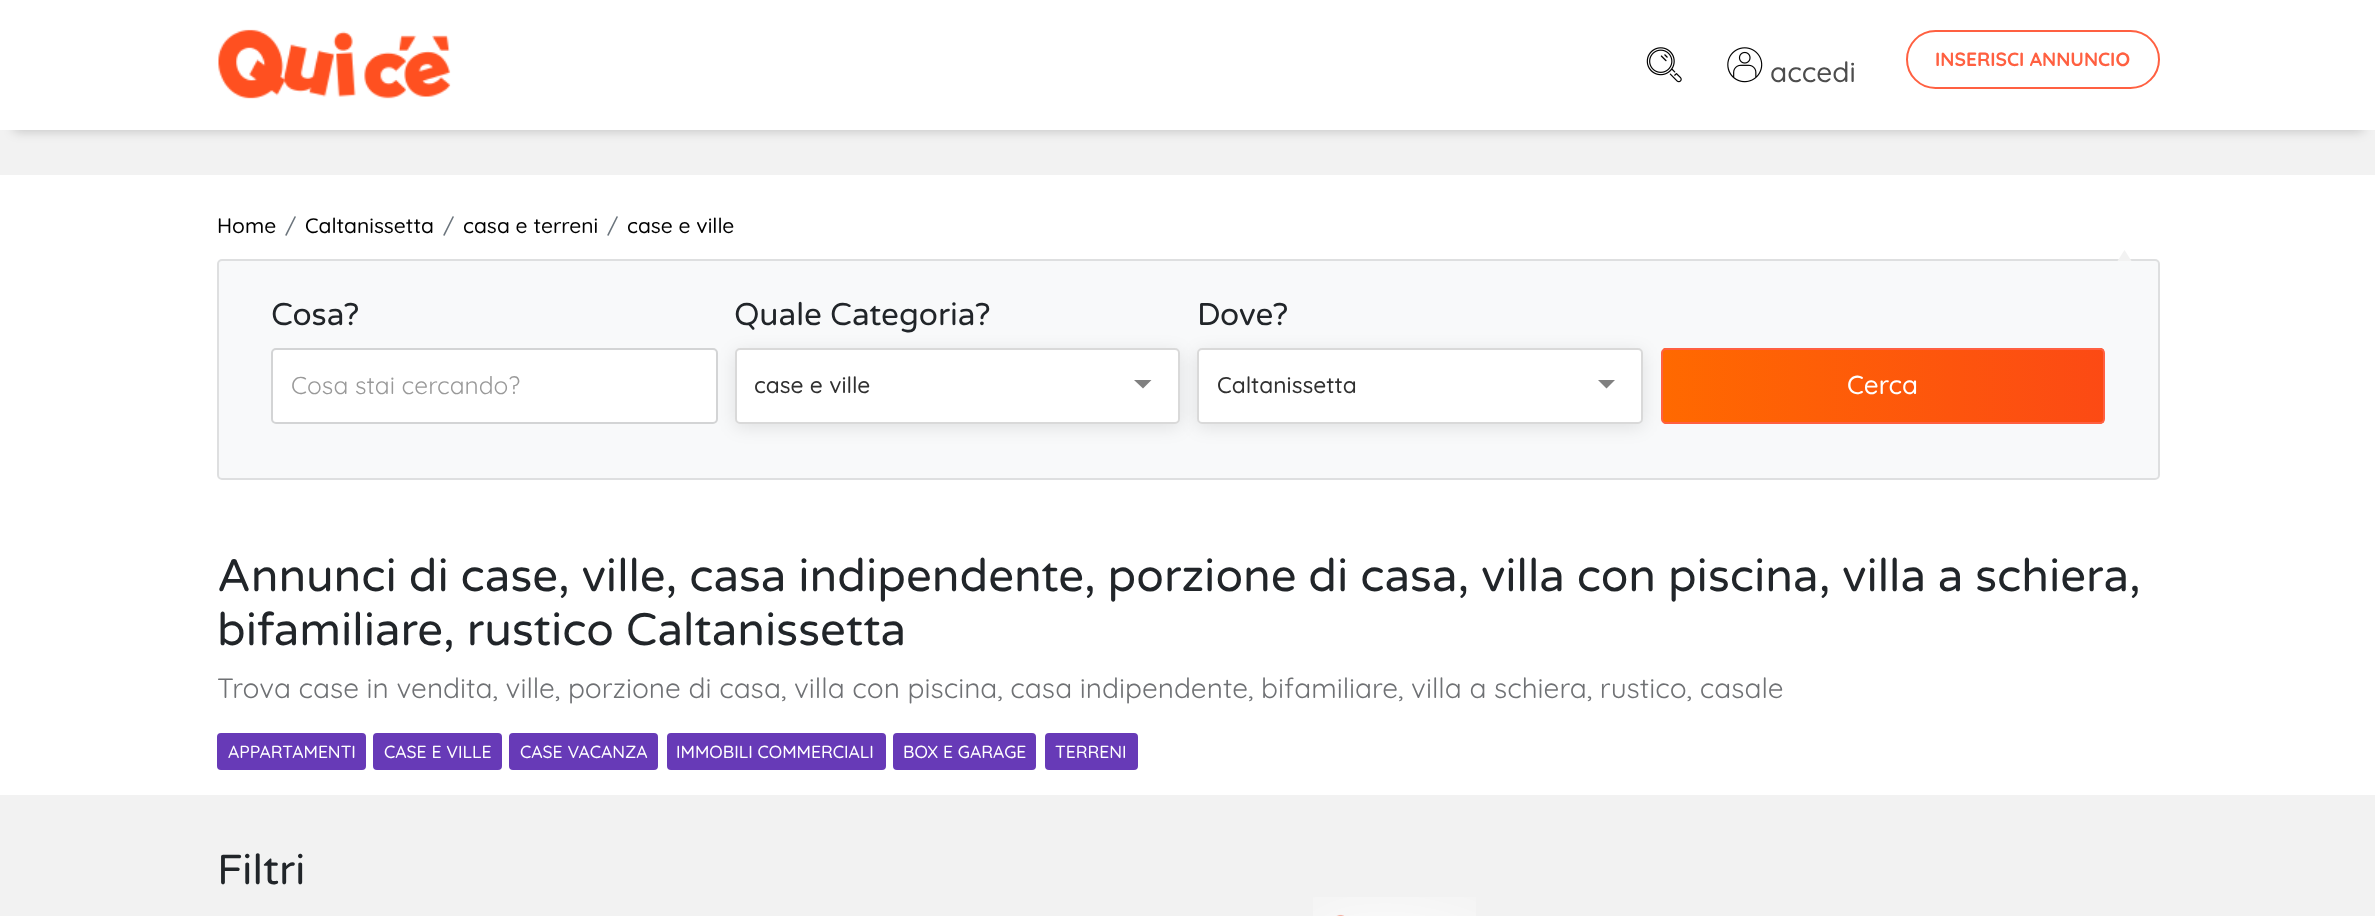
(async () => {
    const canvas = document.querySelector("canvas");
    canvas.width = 2375;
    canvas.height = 916;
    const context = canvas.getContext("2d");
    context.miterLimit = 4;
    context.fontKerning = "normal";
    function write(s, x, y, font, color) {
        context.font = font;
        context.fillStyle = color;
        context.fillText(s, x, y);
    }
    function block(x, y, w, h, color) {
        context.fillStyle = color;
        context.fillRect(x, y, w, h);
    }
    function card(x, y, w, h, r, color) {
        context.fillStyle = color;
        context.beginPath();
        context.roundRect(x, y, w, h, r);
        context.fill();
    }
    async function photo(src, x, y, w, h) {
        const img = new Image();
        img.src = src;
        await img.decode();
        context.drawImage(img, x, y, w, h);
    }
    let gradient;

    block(0, 0, 2375, 916, "rgb(242, 242, 242)");
    block(0, 175, 2375, 620, "rgb(255, 255, 255)");
    context.fillStyle = "rgba(0, 0, 0, 0.2)";
    context.filter = "blur(6px)";
    context.beginPath();
    context.rect(14, 30, 2349, 101);
    context.fill();
    context.filter = "none";
    block(0, 0, 2375, 130, "rgb(255, 255, 255)");
    await photo("media/1.png", 218, 29, 233, 70);
    await photo("media/2.png", 1646, 47, 36, 36);
    context.beginPath();
    context.roundRect(1907, 31, 252, 57, 28.5);
    context.strokeStyle = "rgb(255, 96, 65)";
    context.lineWidth = 2;
    context.stroke();
    write("INSERISCI ANNUNCIO", 1935, 66, "bold 19.25px Quicksand", "rgb(255, 96, 65)");
    await photo("media/3.png", 1727, 47, 36, 36);
    write("accedi", 1770, 82, "500 28px Quicksand", "rgb(77, 77, 77)");
    write("Home", 217, 233, "500 21px Quicksand", "rgb(0, 0, 0)");
    write("/", 285, 233, "500 21px Quicksand", "rgb(108, 117, 125)");
    write("Caltanissetta", 305, 233, "500 21px Quicksand", "rgb(0, 0, 0)");
    write("/", 443, 233, "500 21px Quicksand", "rgb(108, 117, 125)");
    write("casa e terreni", 463, 233, "500 21px Quicksand", "rgb(0, 0, 0)");
    write("/", 607, 233, "500 21px Quicksand", "rgb(108, 117, 125)");
    write("case e ville", 627, 233, "500 21px Quicksand", "rgb(0, 0, 0)");
    card(217, 259, 1943, 221, 5, "rgb(248, 249, 250)");
    context.beginPath();
    context.roundRect(218, 260, 1941, 219, 4);
    context.strokeStyle = "rgba(0, 0, 0, 0.1)";
    context.stroke();
    context.fillStyle = "rgb(242, 242, 242)";
    context.beginPath();
    context.moveTo(2131.5, 261);
    context.lineTo(2117.5, 261);
    context.lineTo(2124.5, 250);
    context.closePath();
    context.fill();
    write("Cosa?", 271, 325, "31.5px Varela Round", "rgb(33, 37, 41)");
    context.fillStyle = "rgb(255, 255, 255)";
    context.beginPath();
    context.roundRect(272, 349, 445, 74, 4);
    context.fill();
    context.strokeStyle = "rgb(211, 212, 213)";
    context.stroke();
    write("Cosa stai cercando?", 291, 394, "24.5px Quicksand", "rgb(153, 153, 153)");
    write("Quale Categoria?", 734, 325, "31.5px Varela Round", "rgb(33, 37, 41)");
    context.fillStyle = "rgba(0, 0, 0, 0.1)";
    context.filter = "blur(9px)";
    context.beginPath();
    context.roundRect(735, 352, 445, 75, 5);
    context.fill();
    context.filter = "none";
    card(735, 348, 445, 76, 5, "rgb(255, 255, 255)");
    context.beginPath();
    context.roundRect(736, 349, 443, 74, 4);
    context.strokeStyle = "rgba(0, 0, 0, 0.15)";
    context.stroke();
    write("case e ville", 754, 393, "500 22.75px Quicksand", "rgb(48, 48, 48)");
    context.fillStyle = "rgb(128, 128, 128)";
    context.beginPath();
    context.moveTo(1134, 380);
    context.lineTo(1151.5, 380);
    context.lineTo(1143, 388.5);
    context.closePath();
    context.fill();
    write("Dove?", 1197, 325, "31.5px Varela Round", "rgb(33, 37, 41)");
    context.save();
    context.beginPath();
    context.roundRect(1661, 348, 444, 76, 5);
    context.clip();
    gradient = context.createLinearGradient(1663, 386, 2104, 386);
    gradient.addColorStop(0, "rgb(255, 105, 0)");
    gradient.addColorStop(1, "rgb(252, 74, 20)");
    context.fillStyle = gradient;
    context.fillRect(1663, 348, 441, 76);
    context.restore();
    context.beginPath();
    context.roundRect(1662, 349, 442, 74, 4);
    context.strokeStyle = "rgb(255, 96, 65)";
    context.stroke();
    context.fillStyle = "rgba(0, 0, 0, 0.1)";
    context.filter = "blur(9px)";
    context.beginPath();
    context.roundRect(1197, 352, 446, 75, 5);
    context.fill();
    context.filter = "none";
    card(1197, 348, 446, 76, 5, "rgb(255, 255, 255)");
    context.beginPath();
    context.roundRect(1198, 349, 444, 74, 4);
    context.strokeStyle = "rgba(0, 0, 0, 0.15)";
    context.stroke();
    write("Caltanissetta", 1217, 393, "500 22.75px Quicksand", "rgb(48, 48, 48)");
    context.fillStyle = "rgb(128, 128, 128)";
    context.beginPath();
    context.moveTo(1598, 380);
    context.lineTo(1615, 380);
    context.lineTo(1606.5, 388.5);
    context.closePath();
    context.fill();
    write("Cerca", 1847, 394, "500 26px Quicksand", "rgb(255, 255, 255)");
    write("Annunci di case, ville, casa indipendente, porzione di casa, villa con piscina, villa a schiera,", 217, 591, "45.5px Varela Round", "rgb(33, 37, 41)");
    write("bifamiliare, rustico Caltanissetta", 217, 645, "45.5px Varela Round", "rgb(33, 37, 41)");
    write("Trova case in vendita, ville, porzione di casa, villa con piscina, casa indipendente, bifamiliare, villa a schiera, rustico, casale", 217, 698, "28px Quicksand", "rgb(111, 113, 116)");
    context.fillStyle = "rgb(103, 58, 183)";
    context.beginPath();
    context.roundRect(218, 734, 147, 35, 3);
    context.fill();
    context.strokeStyle = "rgb(103, 58, 183)";
    context.stroke();
    write("APPARTAMENTI", 228, 758, "500 17.5px Quicksand", "rgb(255, 255, 255)");
    context.fillStyle = "rgb(103, 58, 183)";
    context.beginPath();
    context.roundRect(374, 734, 127, 35, 3);
    context.fill();
    context.stroke();
    write("CASE E VILLE", 384, 758, "500 17.5px Quicksand", "rgb(255, 255, 255)");
    context.fillStyle = "rgb(103, 58, 183)";
    context.beginPath();
    context.roundRect(510, 734, 147, 35, 3);
    context.fill();
    context.stroke();
    write("CASE VACANZA", 520, 758, "500 17.5px Quicksand", "rgb(255, 255, 255)");
    context.fillStyle = "rgb(103, 58, 183)";
    context.beginPath();
    context.roundRect(668, 734, 217, 35, 3);
    context.fill();
    context.stroke();
    write("IMMOBILI COMMERCIALI", 676, 758, "500 17.5px Quicksand", "rgb(255, 255, 255)");
    context.fillStyle = "rgb(103, 58, 183)";
    context.beginPath();
    context.roundRect(894, 734, 141, 35, 3);
    context.fill();
    context.stroke();
    write("BOX E GARAGE", 903, 758, "500 17.5px Quicksand", "rgb(255, 255, 255)");
    context.fillStyle = "rgb(103, 58, 183)";
    context.beginPath();
    context.roundRect(1046, 734, 91, 35, 3);
    context.fill();
    context.stroke();
    write("TERRENI", 1055, 758, "500 17.5px Quicksand", "rgb(255, 255, 255)");
    write("Filtri", 217, 884, "42px Varela Round", "rgb(33, 37, 41)");
    await photo("media/4.png", 1313, 897, 163, 19);
})();
